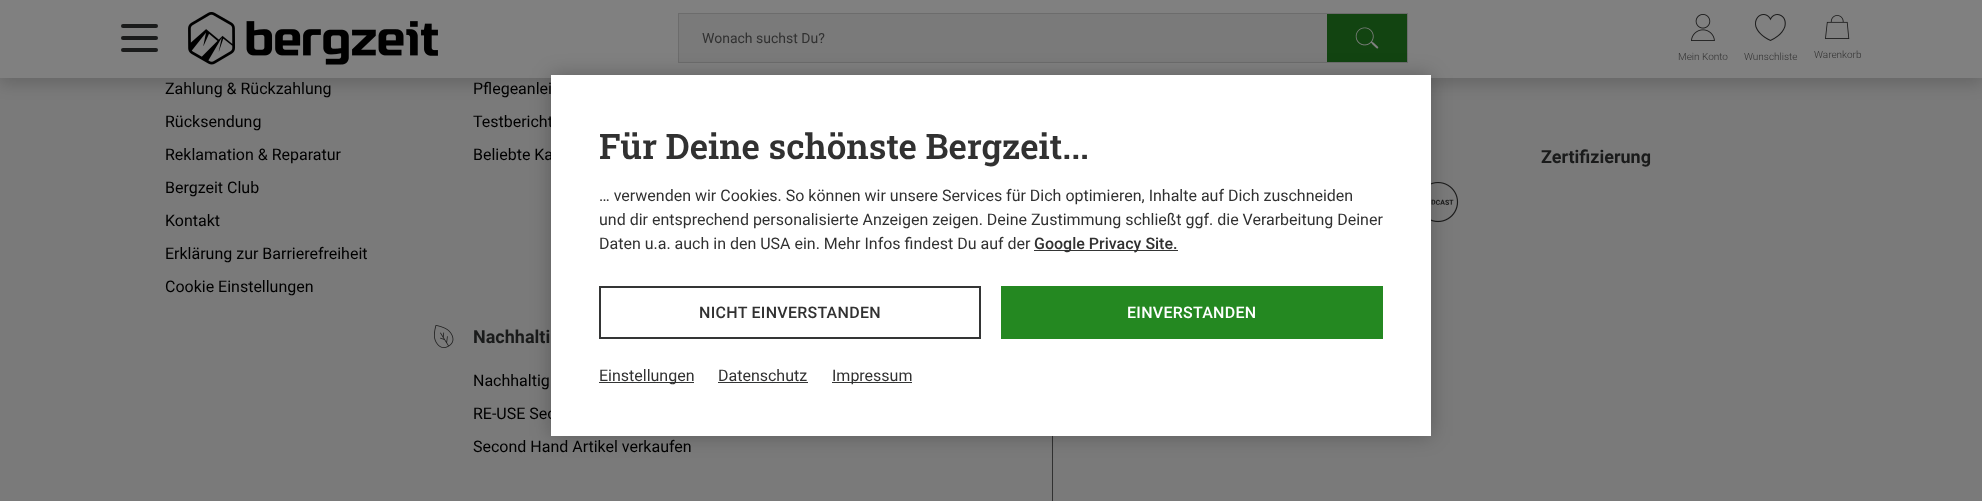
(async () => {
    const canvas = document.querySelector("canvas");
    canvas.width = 1982;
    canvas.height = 501;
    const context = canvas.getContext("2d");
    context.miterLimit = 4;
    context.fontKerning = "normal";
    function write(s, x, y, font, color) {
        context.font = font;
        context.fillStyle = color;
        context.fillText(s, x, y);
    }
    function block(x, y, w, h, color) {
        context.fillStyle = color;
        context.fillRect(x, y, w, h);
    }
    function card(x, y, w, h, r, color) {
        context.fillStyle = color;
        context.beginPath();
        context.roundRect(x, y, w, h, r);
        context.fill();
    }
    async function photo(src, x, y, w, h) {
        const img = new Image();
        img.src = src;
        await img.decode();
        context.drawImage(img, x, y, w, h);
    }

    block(0, 0, 1982, 501, "rgb(122, 122, 122)");
    context.fillStyle = "rgba(0, 0, 0, 0.16)";
    context.filter = "blur(8px)";
    context.beginPath();
    context.rect(0, 38, 1982, 46);
    context.fill();
    context.filter = "none";
    block(0, 0, 1982, 78, "rgb(128, 128, 128)");
    card(121, 36, 37, 4, 2, "rgb(26, 27, 27)");
    card(121, 24, 37, 4, 2, "rgb(26, 27, 27)");
    card(121, 48, 37, 4, 2, "rgb(26, 27, 27)");
    await photo("media/1.png", 188, 12, 250, 53);
    context.strokeStyle = "rgb(108, 108, 108)";
    context.strokeRect(678.5, 13.5, 729, 49);
    block(679, 14, 648, 48, "rgb(122, 122, 122)");
    write("Wonach suchst Du?", 702, 43, "14px Roboto", "rgb(49, 49, 49)");
    block(1327, 14, 80, 48, "rgb(18, 68, 17)");
    await photo("media/2.png", 1355, 27, 24, 22);
    await photo("media/3.png", 1691, 14, 24, 27);
    write("Mein Konto", 1678, 60, "300 10px Roboto", "rgb(49, 49, 49)");
    await photo("media/4.png", 1755, 14, 31, 27);
    write("Wunschliste", 1744, 60, "300 10px Roboto", "rgb(49, 49, 49)");
    await photo("media/5.png", 1825, 15, 25, 24);
    write("Warenkorb", 1814, 58, "300 10px Roboto", "rgb(49, 49, 49)");
    block(1052, 436, 1, 65, "rgb(49, 49, 49)");
    write("Zahlung & Rückzahlung", 165, 94, "16px Roboto", "rgb(0, 0, 0)");
    write("Rücksendung", 165, 127, "16px Roboto", "rgb(0, 0, 0)");
    write("Reklamation & Reparatur", 165, 160, "16px Roboto", "rgb(0, 0, 0)");
    write("Bergzeit Club", 165, 193, "16px Roboto", "rgb(0, 0, 0)");
    write("Kontakt", 165, 226, "16px Roboto", "rgb(0, 0, 0)");
    write("Erklärung zur Barrierefreiheit", 165, 259, "16px Roboto", "rgb(0, 0, 0)");
    write("Cookie Einstellungen", 165, 292, "16px Roboto", "rgb(0, 0, 0)");
    write("Pflegeanlei", 473, 94, "16px Roboto", "rgb(0, 0, 0)");
    write("Testbericht", 473, 127, "16px Roboto", "rgb(0, 0, 0)");
    write("Beliebte Ka", 473, 160, "16px Roboto", "rgb(0, 0, 0)");
    await photo("media/6.png", 434, 325, 20, 23);
    write("Nachhalti", 473, 343, "bold 18px Roboto", "rgb(26, 27, 27)");
    write("Nachhaltig", 473, 386, "16px Roboto", "rgb(0, 0, 0)");
    write("RE-USE Sec", 473, 419, "16px Roboto", "rgb(0, 0, 0)");
    write("Second Hand Artikel verkaufen", 473, 452, "16px Roboto", "rgb(0, 0, 0)");
    write("Zertifizierung", 1541, 163, "bold 18px Roboto", "rgb(26, 27, 27)");
    await photo("media/7.png", 1431, 182, 28, 41);
    context.fillStyle = "rgba(0, 0, 0, 0.25)";
    context.filter = "blur(10px)";
    context.beginPath();
    context.rect(551, 75, 880, 361);
    context.fill();
    context.filter = "none";
    block(551, 75, 880, 361, "rgb(255, 255, 255)");
    write("Für Deine schönste Bergzeit...", 599, 159, "600 35px Roboto Slab", "rgb(49, 49, 49)");
    write("… verwenden wir Cookies. So können wir unsere Services für Dich optimieren, Inhalte auf Dich zuschneiden", 599, 201, "16px Roboto", "rgb(49, 49, 49)");
    write("und dir entsprechend personalisierte Anzeigen zeigen. Deine Zustimmung schließt ggf. die Verarbeitung Deiner", 599, 225, "16px Roboto", "rgb(49, 49, 49)");
    write("Daten u.a. auch in den USA ein. Mehr Infos findest Du auf der", 599, 249, "16px Roboto", "rgb(49, 49, 49)");
    block(1034, 250, 144, 1, "rgb(52, 53, 53)");
    write("Google Privacy Site.", 1034, 249, "500 16px Roboto", "rgb(49, 49, 49)");
    context.strokeStyle = "rgb(52, 53, 53)";
    context.lineWidth = 2;
    context.strokeRect(600, 287, 380, 51);
    context.letterSpacing = "0.3px";
    write("NICHT EINVERSTANDEN", 699, 318, "500 16px Roboto", "rgb(49, 49, 49)");
    block(1001, 286, 382, 53, "rgb(36, 136, 33)");
    write("EINVERSTANDEN", 1127, 318, "500 16px Roboto", "rgb(255, 255, 255)");
    block(599, 382, 95, 1, "rgb(52, 53, 53)");
    context.letterSpacing = "0px";
    write("Einstellungen", 599, 381, "16px Roboto", "rgb(49, 49, 49)");
    write("Datenschutz", 718, 381, "16px Roboto", "rgb(49, 49, 49)");
    block(718, 382, 90, 1, "rgb(52, 53, 53)");
    block(832, 382, 80, 1, "rgb(52, 53, 53)");
    write("Impressum", 832, 381, "16px Roboto", "rgb(49, 49, 49)");
})();
